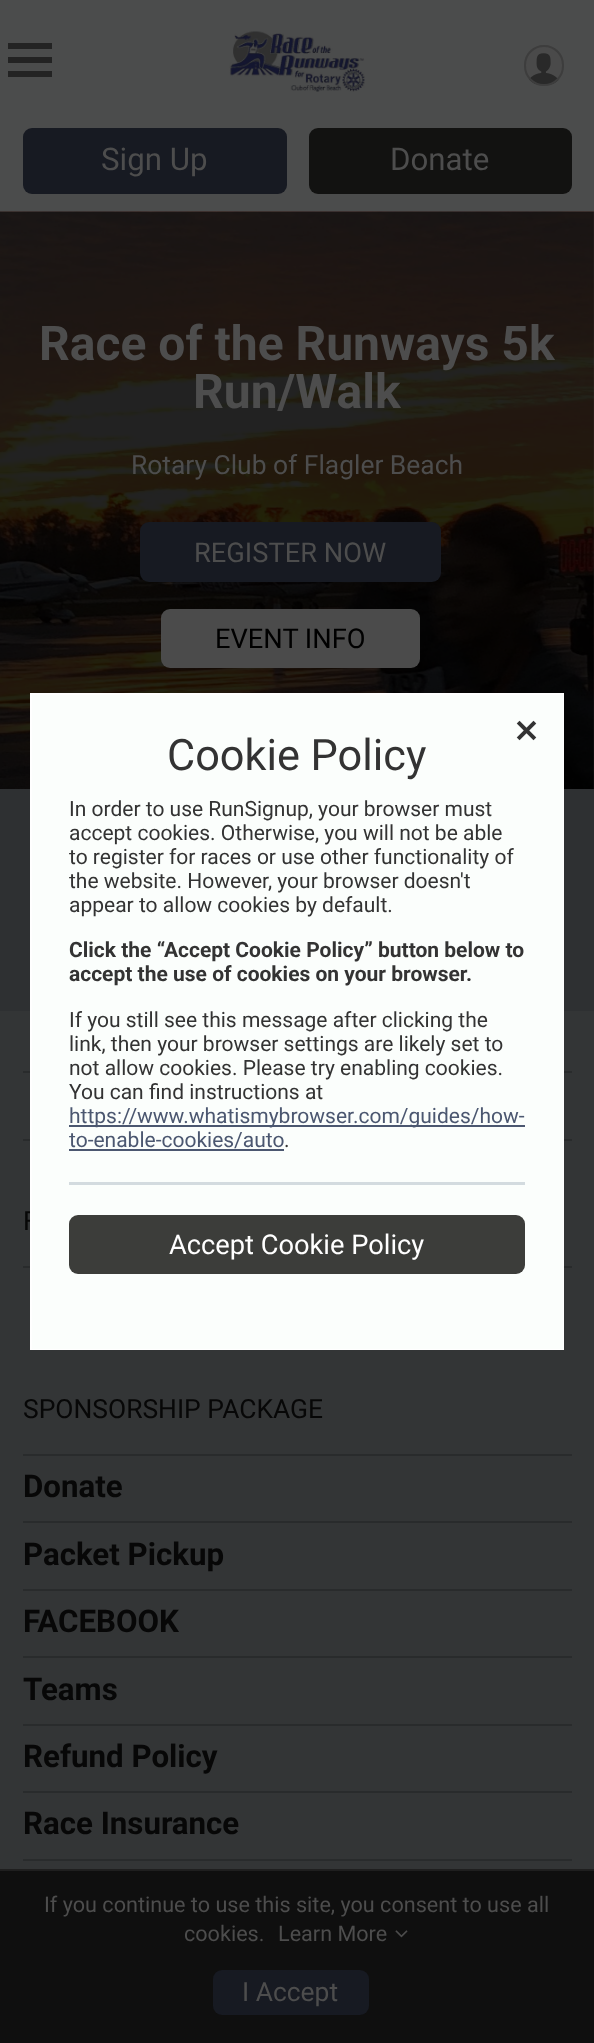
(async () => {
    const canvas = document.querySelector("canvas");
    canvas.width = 594;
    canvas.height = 2043;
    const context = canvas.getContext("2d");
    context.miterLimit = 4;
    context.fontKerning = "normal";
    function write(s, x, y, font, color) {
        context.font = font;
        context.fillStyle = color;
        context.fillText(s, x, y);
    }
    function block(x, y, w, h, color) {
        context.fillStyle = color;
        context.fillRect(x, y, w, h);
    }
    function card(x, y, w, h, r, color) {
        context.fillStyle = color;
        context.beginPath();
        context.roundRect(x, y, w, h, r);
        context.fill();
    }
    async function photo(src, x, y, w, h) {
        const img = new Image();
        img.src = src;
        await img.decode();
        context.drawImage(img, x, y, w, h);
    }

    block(0, 0, 594, 2043, "rgb(75, 76, 76)");
    context.fillStyle = "rgb(35, 35, 35)";
    context.beginPath();
    context.moveTo(52, 43);
    context.lineTo(52, 49);
    context.lineTo(8, 49);
    context.lineTo(8, 43);
    context.closePath();
    context.moveTo(52, 57);
    context.lineTo(52, 63);
    context.lineTo(8, 63);
    context.lineTo(8, 57);
    context.closePath();
    context.moveTo(52, 71);
    context.lineTo(52, 77);
    context.lineTo(8, 77);
    context.lineTo(8, 71);
    context.closePath();
    context.fill();
    await photo("media/1.png", 229, 31, 136, 61);
    await photo("media/2.png", 525, 47, 38, 37);
    context.beginPath();
    context.roundRect(525, 46, 38, 39, 19);
    context.strokeStyle = "rgb(61, 61, 61)";
    context.lineWidth = 2;
    context.stroke();
    card(23, 128, 264, 66, 9, "rgb(23, 26, 34)");
    write("Sign Up", 101, 170, "31.25px Roboto", "rgb(77, 77, 77)");
    card(309, 128, 263, 66, 9, "rgb(18, 18, 17)");
    write("Donate", 390, 170, "31.25px Roboto", "rgb(77, 77, 77)");
    await photo("media/3.png", 0, 211, 594, 578);
    write("Race of the Runways 5k", 39, 360, "bold 48px Roboto", "rgb(77, 77, 77)");
    write("Run/Walk", 193, 408, "bold 48px Roboto", "rgb(77, 77, 77)");
    write("Rotary Club of Flagler Beach", 131, 474, "26.4px Roboto", "rgb(77, 77, 77)");
    card(140, 522, 301, 60, 9, "rgb(23, 26, 34)");
    write("REGISTER NOW", 194, 562, "27.25px Roboto", "rgb(77, 77, 77)");
    card(161, 609, 259, 59, 9, "rgb(75, 75, 75)");
    write("EVENT INFO", 215, 648, "27.25px Roboto", "rgb(0, 0, 0)");
    block(0, 789, 594, 222, "rgb(46, 48, 50)");
    block(0, 1011, 594, 858, "rgb(51, 53, 54)");
    block(23, 1071, 549, 2, "rgb(41, 43, 44)");
    block(23, 1139, 549, 2, "rgb(41, 43, 44)");
    write("F", 23, 1230, "26.4px Roboto", "rgb(7, 7, 7)");
    block(23, 1266, 549, 2, "rgb(41, 43, 44)");
    write("SPONSORSHIP PACKAGE", 23, 1418, "26.4px Roboto", "rgb(7, 7, 7)");
    block(23, 1454, 549, 2, "rgb(41, 43, 44)");
    write("Donate", 23, 1497, "bold 31.25px Roboto", "rgb(7, 7, 7)");
    block(23, 1521, 549, 2, "rgb(41, 43, 44)");
    write("Packet Pickup", 23, 1565, "bold 31.25px Roboto", "rgb(7, 7, 7)");
    block(23, 1589, 549, 2, "rgb(41, 43, 44)");
    write("FACEBOOK", 23, 1632, "bold 31.25px Roboto", "rgb(7, 7, 7)");
    block(23, 1656, 549, 2, "rgb(41, 43, 44)");
    write("Teams", 23, 1700, "bold 31.25px Roboto", "rgb(7, 7, 7)");
    block(23, 1724, 549, 2, "rgb(41, 43, 44)");
    write("Refund Policy", 23, 1767, "bold 31.25px Roboto", "rgb(7, 7, 7)");
    block(23, 1791, 549, 2, "rgb(41, 43, 44)");
    write("Race Insurance", 23, 1834, "bold 31.25px Roboto", "rgb(7, 7, 7)");
    block(23, 1859, 549, 2, "rgb(41, 43, 44)");
    context.strokeStyle = "rgb(255, 255, 255)";
    context.strokeRect(31, 694, 532, 655);
    block(32, 695, 531, 654, "rgb(251, 254, 252)");
    await photo("media/4.png", 516, 720, 21, 21);
    write("Cookie Policy", 167, 770, "43.25px Roboto", "rgb(51, 51, 51)");
    write("In order to use RunSignup, your browser must", 69, 816, "21px Roboto", "rgb(51, 51, 51)");
    write("accept cookies. Otherwise, you will not be able", 69, 840, "21px Roboto", "rgb(51, 51, 51)");
    write("to register for races or use other functionality of", 69, 864, "21px Roboto", "rgb(51, 51, 51)");
    write("the website. However, your browser doesn't", 69, 888, "21px Roboto", "rgb(51, 51, 51)");
    write("appear to allow cookies by default.", 69, 912, "21px Roboto", "rgb(51, 51, 51)");
    write("Click the “Accept Cookie Policy” button below to", 69, 957, "bold 21px Roboto", "rgb(51, 51, 51)");
    write("accept the use of cookies on your browser.", 69, 981, "bold 21px Roboto", "rgb(51, 51, 51)");
    write("If you still see this message after clicking the", 69, 1027, "21px Roboto", "rgb(51, 51, 51)");
    write("link, then your browser settings are likely set to", 69, 1051, "21px Roboto", "rgb(51, 51, 51)");
    write("not allow cookies. Please try enabling cookies.", 69, 1075, "21px Roboto", "rgb(51, 51, 51)");
    write("You can find instructions at", 69, 1099, "21px Roboto", "rgb(51, 51, 51)");
    block(69, 1125, 456, 2, "rgb(75, 87, 112)");
    write("https://www.whatismybrowser.com/guides/how-", 69, 1123, "21px Roboto", "rgb(75, 87, 112)");
    write("to-enable-cookies/auto", 69, 1147, "21px Roboto", "rgb(75, 87, 112)");
    block(69, 1149, 215, 2, "rgb(75, 87, 112)");
    write(".", 284, 1147, "21px Roboto", "rgb(51, 51, 51)");
    block(69, 1182, 456, 3, "rgb(211, 219, 223)");
    card(69, 1215, 456, 59, 9, "rgb(60, 61, 58)");
    write("Accept Cookie Policy", 169, 1254, "27.25px Roboto", "rgb(255, 255, 255)");
    block(0, 1871, 594, 172, "rgb(15, 15, 15)");
    block(0, 1869, 594, 2, "rgb(31, 31, 31)");
    write("If you continue to use this site, you consent to use all", 44, 1912, "21.6px Roboto", "rgb(77, 77, 77)");
    write("cookies.", 184, 1941, "21.6px Roboto", "rgb(77, 77, 77)");
    write("Learn More", 278, 1941, "21.6px Roboto", "rgb(77, 77, 77)");
    await photo("media/5.png", 395, 1930, 13, 8);
    card(213, 1970, 156, 45, 9, "rgb(23, 26, 34)");
    write("I Accept", 242, 2001, "26.4px Roboto", "rgb(77, 77, 77)");
})();
